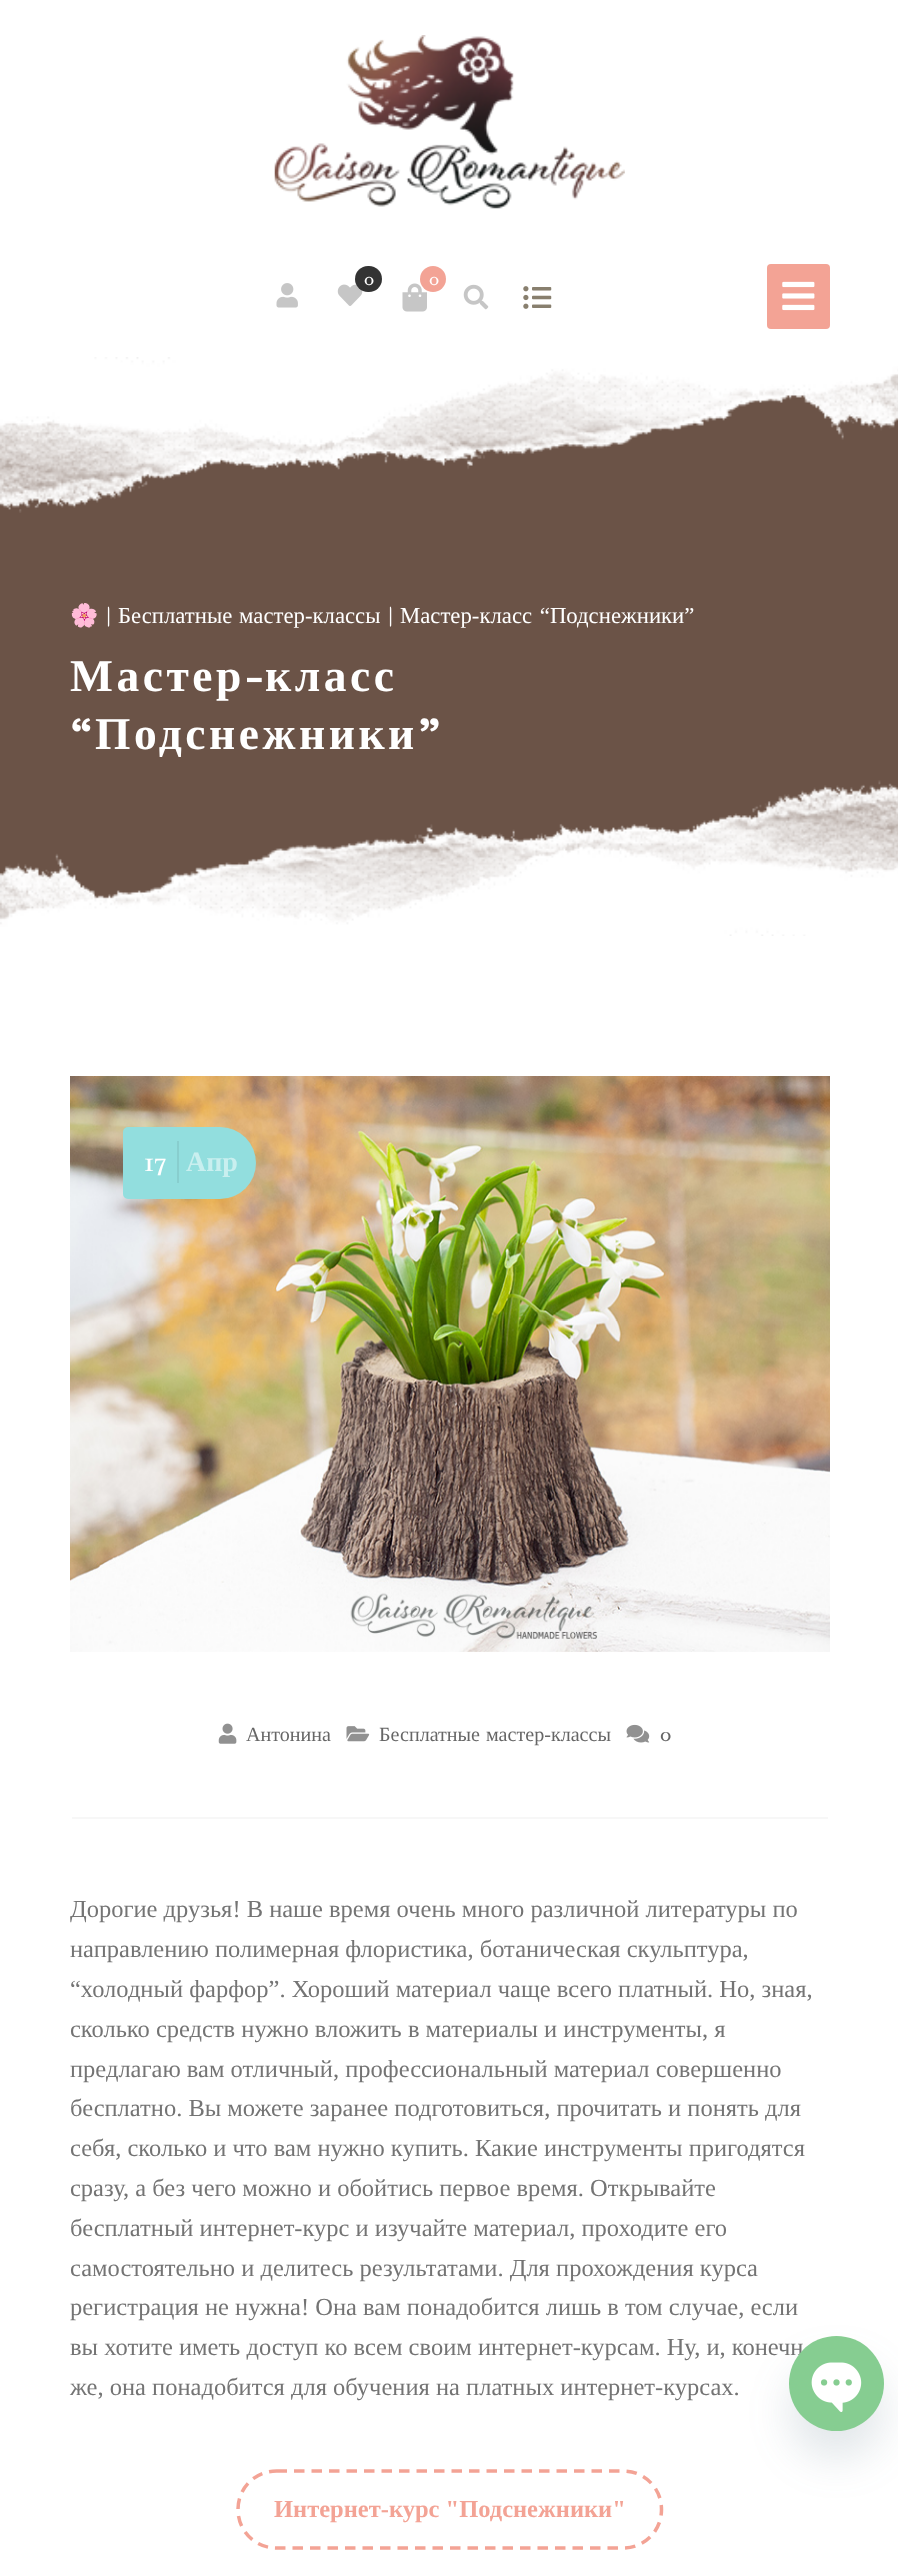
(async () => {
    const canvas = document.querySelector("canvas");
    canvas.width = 898;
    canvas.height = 2553;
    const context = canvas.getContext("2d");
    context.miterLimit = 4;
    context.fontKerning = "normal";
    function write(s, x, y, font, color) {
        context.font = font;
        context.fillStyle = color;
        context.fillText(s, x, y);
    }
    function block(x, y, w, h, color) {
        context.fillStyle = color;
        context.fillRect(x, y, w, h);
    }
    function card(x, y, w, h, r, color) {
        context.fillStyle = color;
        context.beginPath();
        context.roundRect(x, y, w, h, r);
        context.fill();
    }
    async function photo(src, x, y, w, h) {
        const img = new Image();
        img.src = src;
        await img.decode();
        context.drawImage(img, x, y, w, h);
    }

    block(0, 0, 898, 2553, "rgb(255, 255, 255)");
    await photo("media/1.png", 274, 35, 351, 174);
    await photo("media/2.png", 337, 284, 26, 22);
    card(355, 266, 27, 26, 13, "rgb(51, 51, 51)");
    write("0", 364, 285, "18px Radley", "rgb(255, 255, 255)");
    await photo("media/3.png", 402, 283, 25, 29);
    context.fillStyle = "rgb(243, 163, 149)";
    context.beginPath();
    context.arc(433, 279, 13, 0, Math.PI * 2);
    context.fill();
    write("0", 429, 285, "18px Radley", "rgb(255, 255, 255)");
    await photo("media/4.png", 276, 283, 22, 25);
    await photo("media/5.png", 463, 284, 26, 26);
    await photo("media/6.png", 523, 286, 29, 23);
    card(767, 264, 63, 65, 4, "rgb(243, 163, 149)");
    await photo("media/7.png", 782, 281, 33, 30);
    block(0, 366, 898, 561, "rgb(107, 83, 71)");
    await photo("media/8.png", 0, 357, 898, 156);
    write("🌸", 70, 623, "22.75px Noto Color Emoji", "rgb(255, 255, 255)");
    write("|", 104, 623, "22.75px Radley", "rgb(255, 255, 255)");
    context.wordSpacing = "1px";
    write("Бесплатные мастер-классы", 118, 623, "22.75px Liberation Serif", "rgb(255, 255, 255)");
    context.wordSpacing = "0px";
    write("|", 386, 623, "22.75px Radley", "rgb(255, 255, 255)");
    context.wordSpacing = "2px";
    write("Мастер-класс “Подснежники”", 400, 623, "22.75px Liberation Serif", "rgb(255, 255, 255)");
    context.letterSpacing = "3.5px";
    context.wordSpacing = "0px";
    write("Мастер", 70, 691, "bold 45.5px Liberation Serif", "rgb(255, 255, 255)");
    write("-", 245, 691, "bold 45.5px Radley", "rgb(255, 255, 255)");
    write("класс", 265, 691, "bold 45.5px Liberation Serif", "rgb(255, 255, 255)");
    write("“", 70, 749, "bold 45.5px Radley", "rgb(255, 255, 255)");
    write("Подснежники", 95, 749, "bold 45.5px Liberation Serif", "rgb(255, 255, 255)");
    write("”", 418, 749, "bold 45.5px Radley", "rgb(255, 255, 255)");
    await photo("media/9.png", 0, 780, 898, 156);
    await photo("media/10.png", 70, 1076, 760, 576);
    context.fillStyle = "rgb(146, 222, 222)";
    context.beginPath();
    context.roundRect(123, 1127, 133, 72, [5, 36, 36, 5]);
    context.fill();
    context.letterSpacing = "0px";
    write("17", 144, 1171, "28px Radley", "rgb(255, 255, 255)");
    write("Апр", 186, 1171, "bold 28px Liberation Serif", "rgb(201, 239, 239)");
    block(177, 1141, 2, 42, "rgb(136, 206, 206)");
    block(72, 1817, 756, 2, "rgb(247, 247, 247)");
    await photo("media/11.png", 218, 1723, 19, 21);
    write("Антонина", 246, 1741, "20.1px Liberation Serif", "rgb(102, 102, 102)");
    await photo("media/12.png", 346, 1726, 24, 16);
    context.wordSpacing = "1px";
    write("Бесплатные мастер-классы", 379, 1741, "20.1px Liberation Serif", "rgb(102, 102, 102)");
    await photo("media/13.png", 626, 1724, 24, 19);
    context.wordSpacing = "0px";
    write("0", 660, 1741, "20.1px Radley", "rgb(102, 102, 102)");
    write("Дорогие друзья! В наше время очень много различной литературы по", 70, 1917, "24.5px Liberation Serif", "rgb(116, 116, 116)");
    write("направлению полимерная флористика, ботаническая скульптура,", 70, 1957, "24.5px Liberation Serif", "rgb(116, 116, 116)");
    write("“холодный фарфор”. Хороший материал чаще всего платный. Но, зная,", 70, 1997, "24.5px Liberation Serif", "rgb(116, 116, 116)");
    write("сколько средств нужно вложить в материалы и инструменты, я", 70, 2037, "24.5px Liberation Serif", "rgb(116, 116, 116)");
    write("предлагаю вам отличный, профессиональный материал совершенно", 70, 2077, "24.5px Liberation Serif", "rgb(116, 116, 116)");
    write("бесплатно. Вы можете заранее подготовиться, прочитать и понять для", 70, 2116, "24.5px Liberation Serif", "rgb(116, 116, 116)");
    write("себя, сколько и что вам нужно купить. Какие инструменты пригодятся", 70, 2156, "24.5px Liberation Serif", "rgb(116, 116, 116)");
    write("сразу, а без чего можно и обойтись первое время. Открывайте", 70, 2196, "24.5px Liberation Serif", "rgb(116, 116, 116)");
    write("бесплатный интернет-курс и изучайте материал, проходите его", 70, 2236, "24.5px Liberation Serif", "rgb(116, 116, 116)");
    write("самостоятельно и делитесь результатами. Для прохождения курса", 70, 2276, "24.5px Liberation Serif", "rgb(116, 116, 116)");
    write("регистрация не нужна! Она вам понадобится лишь в том случае, если", 70, 2315, "24.5px Liberation Serif", "rgb(116, 116, 116)");
    write("вы хотите иметь доступ ко всем своим интернет-курсам. Ну, и, конечн", 70, 2355, "24.5px Liberation Serif", "rgb(116, 116, 116)");
    write("же, она понадобится для обучения на платных интернет-курсах.", 70, 2395, "24.5px Liberation Serif", "rgb(116, 116, 116)");
    context.beginPath();
    context.moveTo(276.5, 2471);
    context.lineTo(623, 2471);
    context.bezierCurveTo(644.5, 2471, 661.5, 2488, 661.5, 2509.5);
    context.bezierCurveTo(661.5, 2531, 644.5, 2548, 623, 2548);
    context.lineTo(276.5, 2548);
    context.bezierCurveTo(255, 2548, 238, 2531, 238, 2509.5);
    context.bezierCurveTo(238, 2488, 255, 2471, 276.5, 2471);
    context.closePath();
    context.strokeStyle = "rgb(243, 163, 149)";
    context.lineWidth = 3.5;
    context.setLineDash([10.5, 7]);
    context.stroke();
    write("Интернет-курс \"Подснежники\"", 274, 2517, "bold 24.5px Liberation Serif", "rgb(243, 163, 149)");
    context.fillStyle = "rgba(73, 104, 126, 0.16)";
    context.filter = "blur(21px)";
    context.beginPath();
    context.roundRect(789, 2364, 95, 95, 47.5);
    context.fill();
    context.filter = "none";
    context.fillStyle = "rgb(134, 205, 145)";
    context.beginPath();
    context.arc(836.5, 2383.5, 47.5, 0, Math.PI * 2);
    context.fill();
    await photo("media/14.png", 811, 2362, 51, 50);
})();
